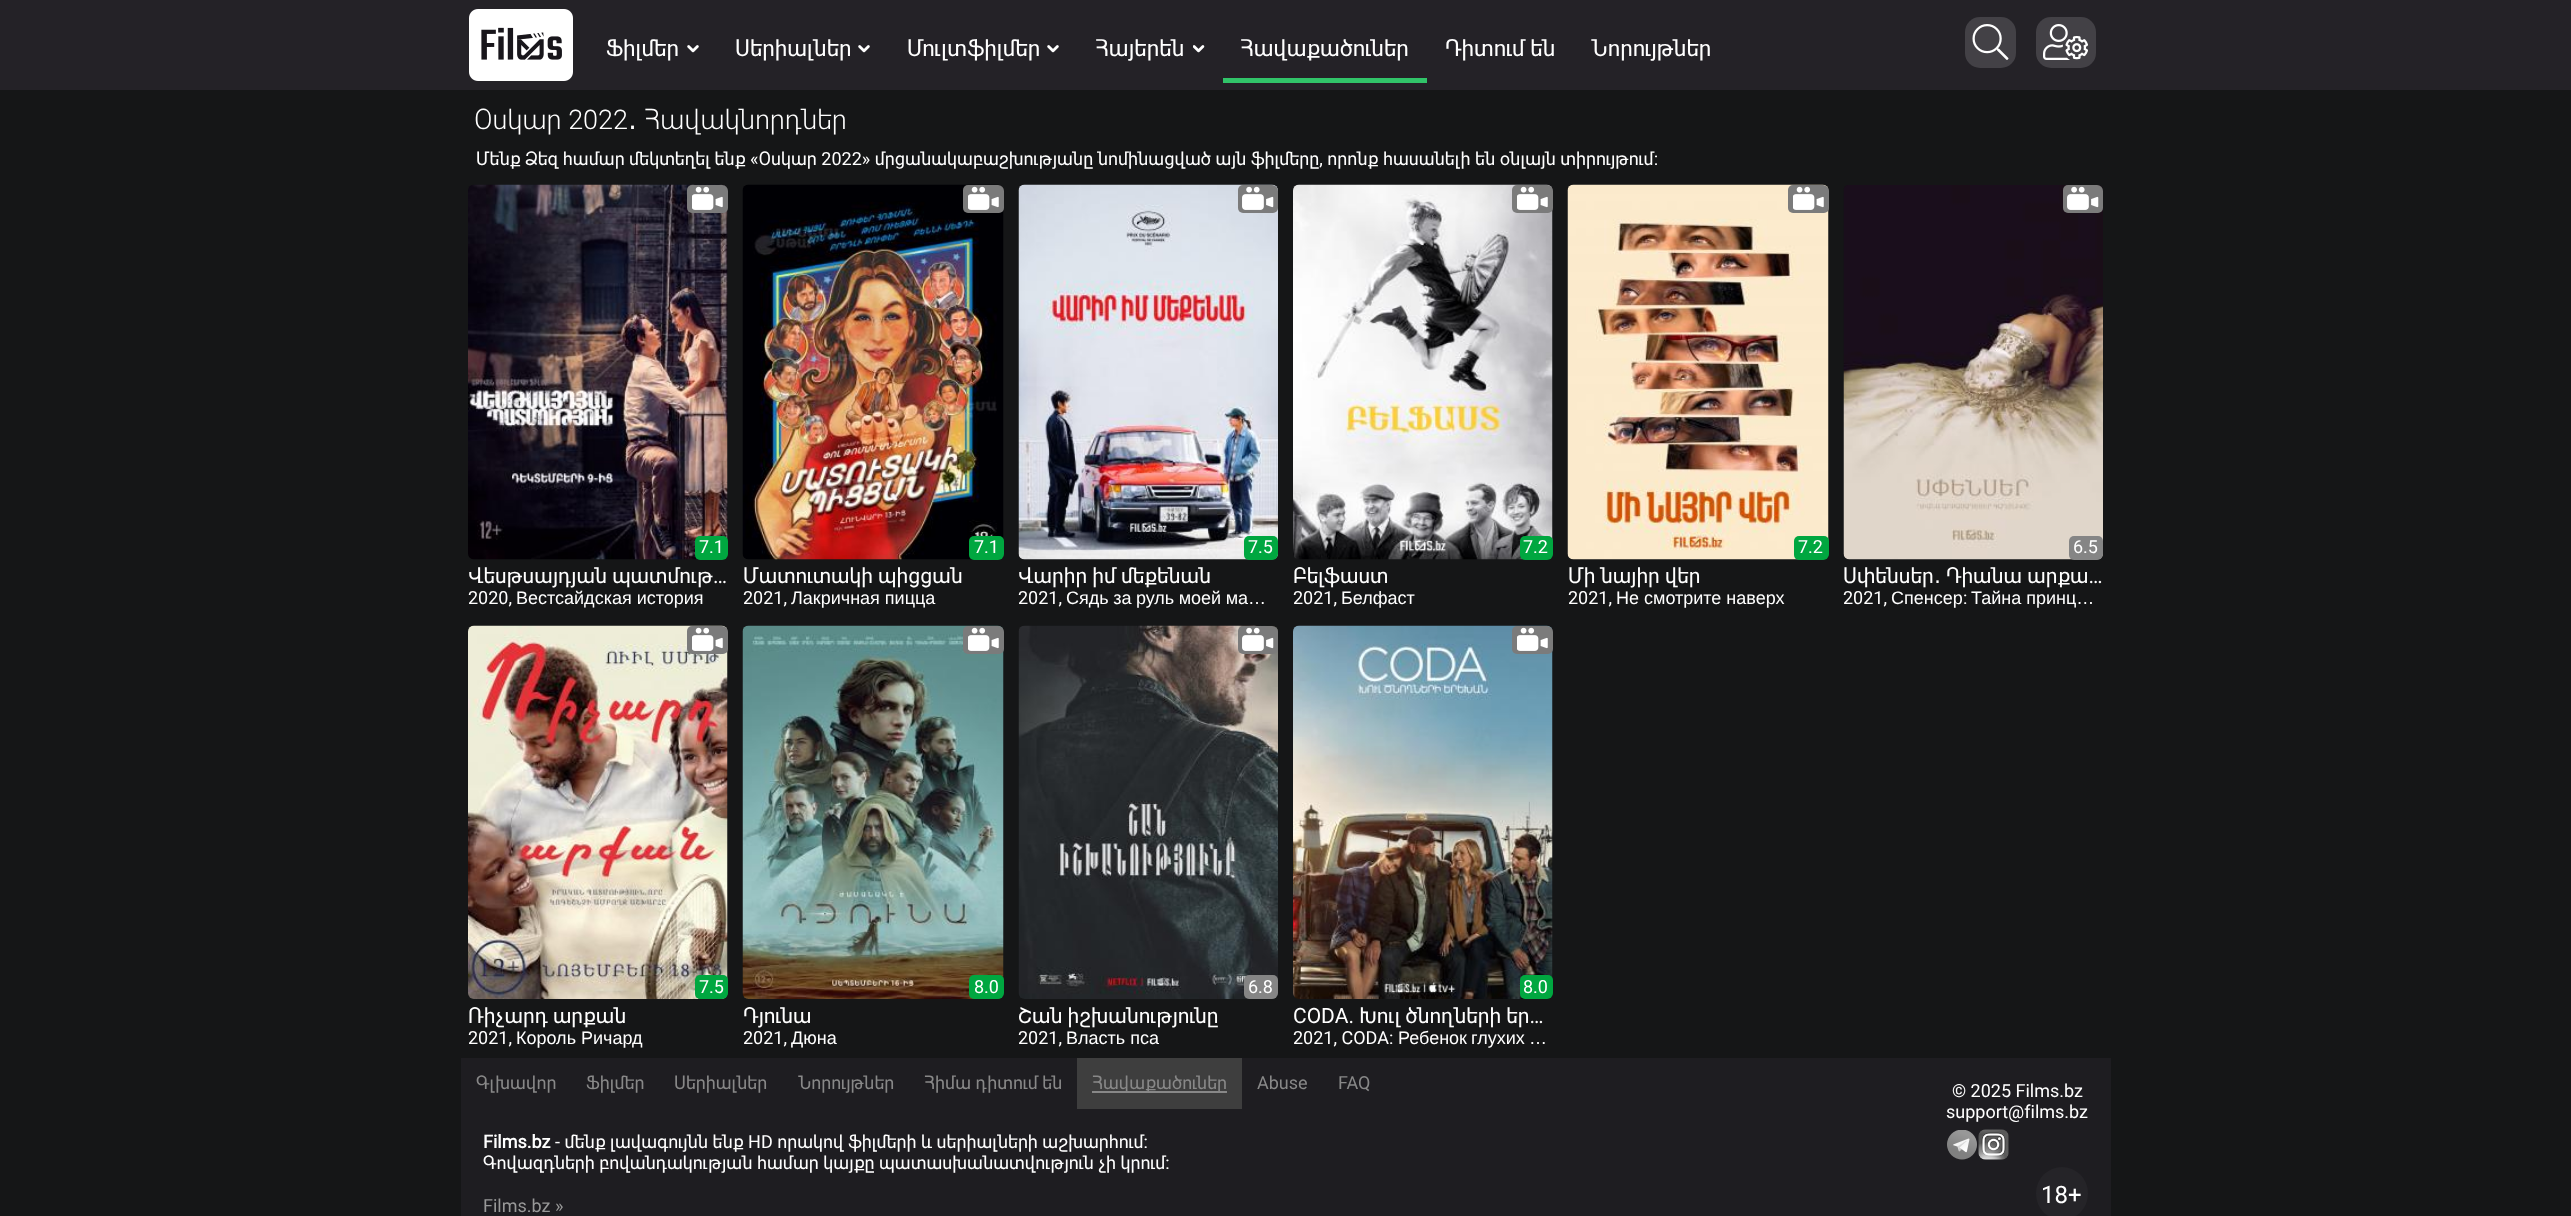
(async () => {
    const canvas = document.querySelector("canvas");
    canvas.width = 2571;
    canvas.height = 1216;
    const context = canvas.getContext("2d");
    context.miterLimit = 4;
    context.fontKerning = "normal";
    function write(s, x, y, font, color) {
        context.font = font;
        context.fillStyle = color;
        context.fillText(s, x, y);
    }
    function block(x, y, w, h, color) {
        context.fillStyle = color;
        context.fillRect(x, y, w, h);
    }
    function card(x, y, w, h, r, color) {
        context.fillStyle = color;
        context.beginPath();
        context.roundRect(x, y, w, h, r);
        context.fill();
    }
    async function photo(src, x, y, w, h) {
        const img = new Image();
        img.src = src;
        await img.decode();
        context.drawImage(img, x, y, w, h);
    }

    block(0, 0, 2571, 1216, "rgb(21, 22, 23)");
    block(0, 0, 2571, 90, "rgb(36, 34, 39)");
    await photo("media/1.png", 469, 9, 104, 72);
    write("Ֆիլմեր", 606, 56, "22.5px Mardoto", "rgb(255, 255, 255)");
    await photo("media/2.png", 687, 45, 12, 8);
    write("Սերիալներ", 735, 56, "22.5px Mardoto", "rgb(255, 255, 255)");
    await photo("media/2.png", 858, 45, 12, 8);
    write("Մուլտֆիլմեր", 907, 56, "22.5px Mardoto", "rgb(255, 255, 255)");
    await photo("media/2.png", 1047, 45, 12, 8);
    write("Հայերեն", 1095, 56, "22.5px Mardoto", "rgb(255, 255, 255)");
    await photo("media/3.png", 1193, 45, 12, 8);
    block(1223, 78, 204, 5, "rgb(49, 196, 105)");
    write("Հավաքածուներ", 1240, 56, "22.5px Mardoto", "rgb(255, 255, 255)");
    write("Դիտում են", 1445, 56, "22.5px Mardoto", "rgb(255, 255, 255)");
    write("Նորույթներ", 1591, 56, "22.5px Mardoto", "rgb(255, 255, 255)");
    card(1965, 17, 51, 51, 15, "rgb(67, 65, 70)");
    await photo("media/4.png", 1972, 24, 37, 36);
    card(2036, 17, 60, 51, 15, "rgb(67, 65, 70)");
    await photo("media/5.png", 2043, 24, 45, 36);
    write("Օսկար 2022", 474, 129, "300 27px Mardoto", "rgb(255, 255, 255)");
    write("․", 628, 129, "27px DejaVu Sans", "rgb(255, 255, 255)");
    write("Հավակնորդներ", 644, 129, "300 27px Mardoto", "rgb(255, 255, 255)");
    write("Մենք Ձեզ համար մեկտեղել ենք «Օսկար 2022» մրցանակաբաշխությանը նոմինացված այն ֆիլմերը, որոնք հասանելի են օնլայն տիրույթում։", 476, 165, "18px Mardoto", "rgb(255, 255, 255)");
    await photo("media/6.png", 468, 184, 260, 376);
    context.fillStyle = "rgb(123, 123, 123)";
    context.beginPath();
    context.roundRect(687, 185, 41, 28, [5, 6, 5, 5]);
    context.fill();
    await photo("media/7.png", 692, 186, 31, 24);
    context.fillStyle = "rgb(0, 167, 64)";
    context.beginPath();
    context.roundRect(695, 536, 33, 24, [5, 5, 6, 5]);
    context.fill();
    write("7.1", 699, 553, "18px Mardoto", "rgb(255, 255, 255)");
    write("Վեսթսայդյան պատմութ…", 468, 583, "21px Mardoto", "rgb(255, 255, 255)");
    write("2020,", 468, 604, "18px Mardoto", "rgb(255, 255, 255)");
    write("Вестсайдская история", 516, 604, "18px Liberation Sans", "rgb(255, 255, 255)");
    await photo("media/8.png", 742, 184, 262, 376);
    context.fillStyle = "rgb(123, 123, 123)";
    context.beginPath();
    context.roundRect(963, 185, 41, 28, [5, 6, 5, 5]);
    context.fill();
    await photo("media/7.png", 968, 186, 31, 24);
    context.fillStyle = "rgb(0, 167, 64)";
    context.beginPath();
    context.roundRect(969, 536, 35, 24, [5, 5, 6, 5]);
    context.fill();
    write("7.1", 974, 553, "18px Mardoto", "rgb(255, 255, 255)");
    write("Մատուտակի պիցցան", 743, 583, "21px Mardoto", "rgb(255, 255, 255)");
    write("2021,", 743, 604, "18px Mardoto", "rgb(255, 255, 255)");
    write("Лакричная пицца", 791, 604, "18px Liberation Sans", "rgb(255, 255, 255)");
    await photo("media/9.png", 1018, 184, 260, 376);
    context.fillStyle = "rgb(123, 123, 123)";
    context.beginPath();
    context.roundRect(1238, 185, 40, 28, [5, 6, 5, 5]);
    context.fill();
    await photo("media/10.png", 1242, 186, 32, 24);
    context.fillStyle = "rgb(0, 167, 64)";
    context.beginPath();
    context.roundRect(1244, 536, 34, 24, [5, 5, 6, 5]);
    context.fill();
    write("7.5", 1248, 553, "18px Mardoto", "rgb(255, 255, 255)");
    write("Վարիր իմ մեքենան", 1018, 583, "21px Mardoto", "rgb(255, 255, 255)");
    write("2021,", 1018, 604, "18px Mardoto", "rgb(255, 255, 255)");
    context.wordSpacing = "-0.5px";
    write("Сядь за руль моей ма…", 1066, 604, "18px Liberation Sans", "rgb(255, 255, 255)");
    await photo("media/11.png", 1293, 184, 260, 376);
    context.fillStyle = "rgb(123, 123, 123)";
    context.beginPath();
    context.roundRect(1512, 185, 41, 28, [5, 6, 5, 5]);
    context.fill();
    await photo("media/7.png", 1517, 186, 31, 24);
    context.fillStyle = "rgb(0, 167, 64)";
    context.beginPath();
    context.roundRect(1520, 536, 33, 24, [5, 5, 6, 5]);
    context.fill();
    context.wordSpacing = "0px";
    write("7.2", 1523, 553, "18px Mardoto", "rgb(255, 255, 255)");
    write("Բելֆաստ", 1293, 583, "21px Mardoto", "rgb(255, 255, 255)");
    write("2021,", 1293, 604, "18px Mardoto", "rgb(255, 255, 255)");
    write("Белфаст", 1341, 604, "18px Liberation Sans", "rgb(255, 255, 255)");
    await photo("media/12.png", 1567, 184, 262, 376);
    context.fillStyle = "rgb(123, 123, 123)";
    context.beginPath();
    context.roundRect(1788, 185, 41, 28, [5, 6, 5, 5]);
    context.fill();
    await photo("media/7.png", 1793, 186, 31, 24);
    context.fillStyle = "rgb(0, 167, 64)";
    context.beginPath();
    context.roundRect(1794, 536, 35, 24, [5, 5, 6, 5]);
    context.fill();
    write("7.2", 1798, 553, "18px Mardoto", "rgb(255, 255, 255)");
    write("Մի նայիր վեր", 1568, 583, "21px Mardoto", "rgb(255, 255, 255)");
    write("2021,", 1568, 604, "18px Mardoto", "rgb(255, 255, 255)");
    write("Не смотрите наверх", 1616, 604, "18px Liberation Sans", "rgb(255, 255, 255)");
    await photo("media/13.png", 1843, 185, 260, 375);
    context.fillStyle = "rgb(123, 123, 123)";
    context.beginPath();
    context.roundRect(2063, 185, 40, 28, [5, 6, 5, 5]);
    context.fill();
    await photo("media/10.png", 2067, 186, 32, 24);
    context.fillStyle = "rgb(133, 133, 133)";
    context.beginPath();
    context.roundRect(2069, 536, 34, 24, [5, 5, 6, 5]);
    context.fill();
    write("6.5", 2073, 553, "18px Mardoto", "rgb(255, 255, 255)");
    write("Սփենսեր", 1843, 583, "21px Mardoto", "rgb(255, 255, 255)");
    write("․", 1934, 583, "21px DejaVu Sans", "rgb(255, 255, 255)");
    write("Դիանա արքա…", 1946, 583, "21px Mardoto", "rgb(255, 255, 255)");
    write("2021,", 1843, 604, "18px Mardoto", "rgb(255, 255, 255)");
    write("Спенсер", 1891, 604, "18px Liberation Sans", "rgb(255, 255, 255)");
    write(":", 1963, 604, "18px Mardoto", "rgb(255, 255, 255)");
    write("Тайна принц…", 1971, 604, "18px Liberation Sans", "rgb(255, 255, 255)");
    await photo("media/14.png", 468, 625, 260, 374);
    context.fillStyle = "rgb(123, 123, 123)";
    context.beginPath();
    context.roundRect(687, 626, 41, 28, [5, 6, 5, 5]);
    context.fill();
    await photo("media/7.png", 692, 627, 31, 24);
    context.fillStyle = "rgb(0, 167, 64)";
    context.beginPath();
    context.roundRect(695, 975, 33, 24, [5, 5, 6, 5]);
    context.fill();
    write("7.5", 699, 993, "18px Mardoto", "rgb(255, 255, 255)");
    write("Ռիչարդ արքան", 468, 1023, "21px Mardoto", "rgb(255, 255, 255)");
    write("2021,", 468, 1044, "18px Mardoto", "rgb(255, 255, 255)");
    write("Король Ричард", 516, 1044, "18px Liberation Sans", "rgb(255, 255, 255)");
    await photo("media/15.png", 742, 625, 262, 374);
    context.fillStyle = "rgb(123, 123, 123)";
    context.beginPath();
    context.roundRect(963, 626, 41, 28, [5, 6, 5, 5]);
    context.fill();
    await photo("media/7.png", 968, 627, 31, 24);
    context.fillStyle = "rgb(0, 167, 64)";
    context.beginPath();
    context.roundRect(969, 975, 35, 24, [5, 5, 6, 5]);
    context.fill();
    write("8.0", 974, 993, "18px Mardoto", "rgb(255, 255, 255)");
    write("Դյունա", 743, 1023, "21px Mardoto", "rgb(255, 255, 255)");
    write("2021,", 743, 1044, "18px Mardoto", "rgb(255, 255, 255)");
    write("Дюна", 791, 1044, "18px Liberation Sans", "rgb(255, 255, 255)");
    await photo("media/16.png", 1018, 625, 260, 374);
    context.fillStyle = "rgb(123, 123, 123)";
    context.beginPath();
    context.roundRect(1238, 626, 40, 28, [5, 6, 5, 5]);
    context.fill();
    await photo("media/10.png", 1242, 627, 32, 24);
    context.fillStyle = "rgb(133, 133, 133)";
    context.beginPath();
    context.roundRect(1244, 975, 34, 24, [5, 5, 6, 5]);
    context.fill();
    write("6.8", 1248, 993, "18px Mardoto", "rgb(255, 255, 255)");
    write("Շան իշխանությունը", 1018, 1023, "21px Mardoto", "rgb(255, 255, 255)");
    write("2021,", 1018, 1044, "18px Mardoto", "rgb(255, 255, 255)");
    write("Власть пса", 1066, 1044, "18px Liberation Sans", "rgb(255, 255, 255)");
    await photo("media/17.png", 1293, 625, 260, 374);
    context.fillStyle = "rgb(123, 123, 123)";
    context.beginPath();
    context.roundRect(1512, 626, 41, 28, [5, 6, 5, 5]);
    context.fill();
    await photo("media/7.png", 1517, 627, 31, 24);
    context.fillStyle = "rgb(0, 167, 64)";
    context.beginPath();
    context.roundRect(1520, 975, 33, 24, [5, 5, 6, 5]);
    context.fill();
    write("8.0", 1523, 993, "18px Mardoto", "rgb(255, 255, 255)");
    write("CODA. Խուլ ծնողների եր…", 1293, 1023, "21px Mardoto", "rgb(255, 255, 255)");
    write("2021, CODA:", 1293, 1044, "18px Mardoto", "rgb(255, 255, 255)");
    write("Ребенок", 1398, 1044, "18px Liberation Sans", "rgb(255, 255, 255)");
    write("глухих", 1471, 1044, "18px Liberation Sans", "rgb(255, 255, 255)");
    write("…", 1529, 1044, "18px Liberation Sans", "rgb(255, 255, 255)");
    block(461, 1058, 1650, 158, "rgb(30, 29, 33)");
    write("Գլխավոր", 476, 1089, "18px Mardoto", "rgb(136, 136, 136)");
    write("Ֆիլմեր", 586, 1089, "18px Mardoto", "rgb(136, 136, 136)");
    write("Սերիալներ", 674, 1089, "18px Mardoto", "rgb(136, 136, 136)");
    write("Նորույթներ", 798, 1089, "18px Mardoto", "rgb(136, 136, 136)");
    write("Հիմա դիտում են", 924, 1089, "18px Mardoto", "rgb(136, 136, 136)");
    block(1077, 1058, 165, 51, "rgb(62, 62, 62)");
    block(1092, 1091, 135, 2, "rgb(136, 136, 136)");
    write("Հավաքածուներ", 1092, 1089, "18px Mardoto", "rgb(136, 136, 136)");
    write("Abuse", 1257, 1089, "18px Mardoto", "rgb(136, 136, 136)");
    write("FAQ", 1338, 1089, "18px Mardoto", "rgb(136, 136, 136)");
    write("© 2025 Films.bz", 1952, 1097, "18px Mardoto", "rgb(255, 255, 255)");
    write("support@films.bz", 1946, 1118, "18px Mardoto", "rgb(255, 255, 255)");
    await photo("media/18.png", 1947, 1130, 30, 30);
    await photo("media/19.png", 1978, 1129, 31, 31);
    card(2036, 1167, 52, 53, 26, "rgb(37, 36, 40)");
    write("18+", 2041, 1203, "24px Roboto", "rgb(255, 255, 255)");
    write("Films.bz", 483, 1148, "bold 18px Mardoto", "rgb(255, 255, 255)");
    write("- մենք լավագույնն ենք HD որակով ֆիլմերի և սերիալների աշխարհում:", 555, 1148, "18px Mardoto", "rgb(255, 255, 255)");
    write("Գովազդների բովանդակության համար կայքը պատասխանատվություն չի կրում:", 483, 1169, "18px Mardoto", "rgb(255, 255, 255)");
    write("Films.bz »", 483, 1212, "18px Mardoto", "rgb(152, 152, 152)");
})();
